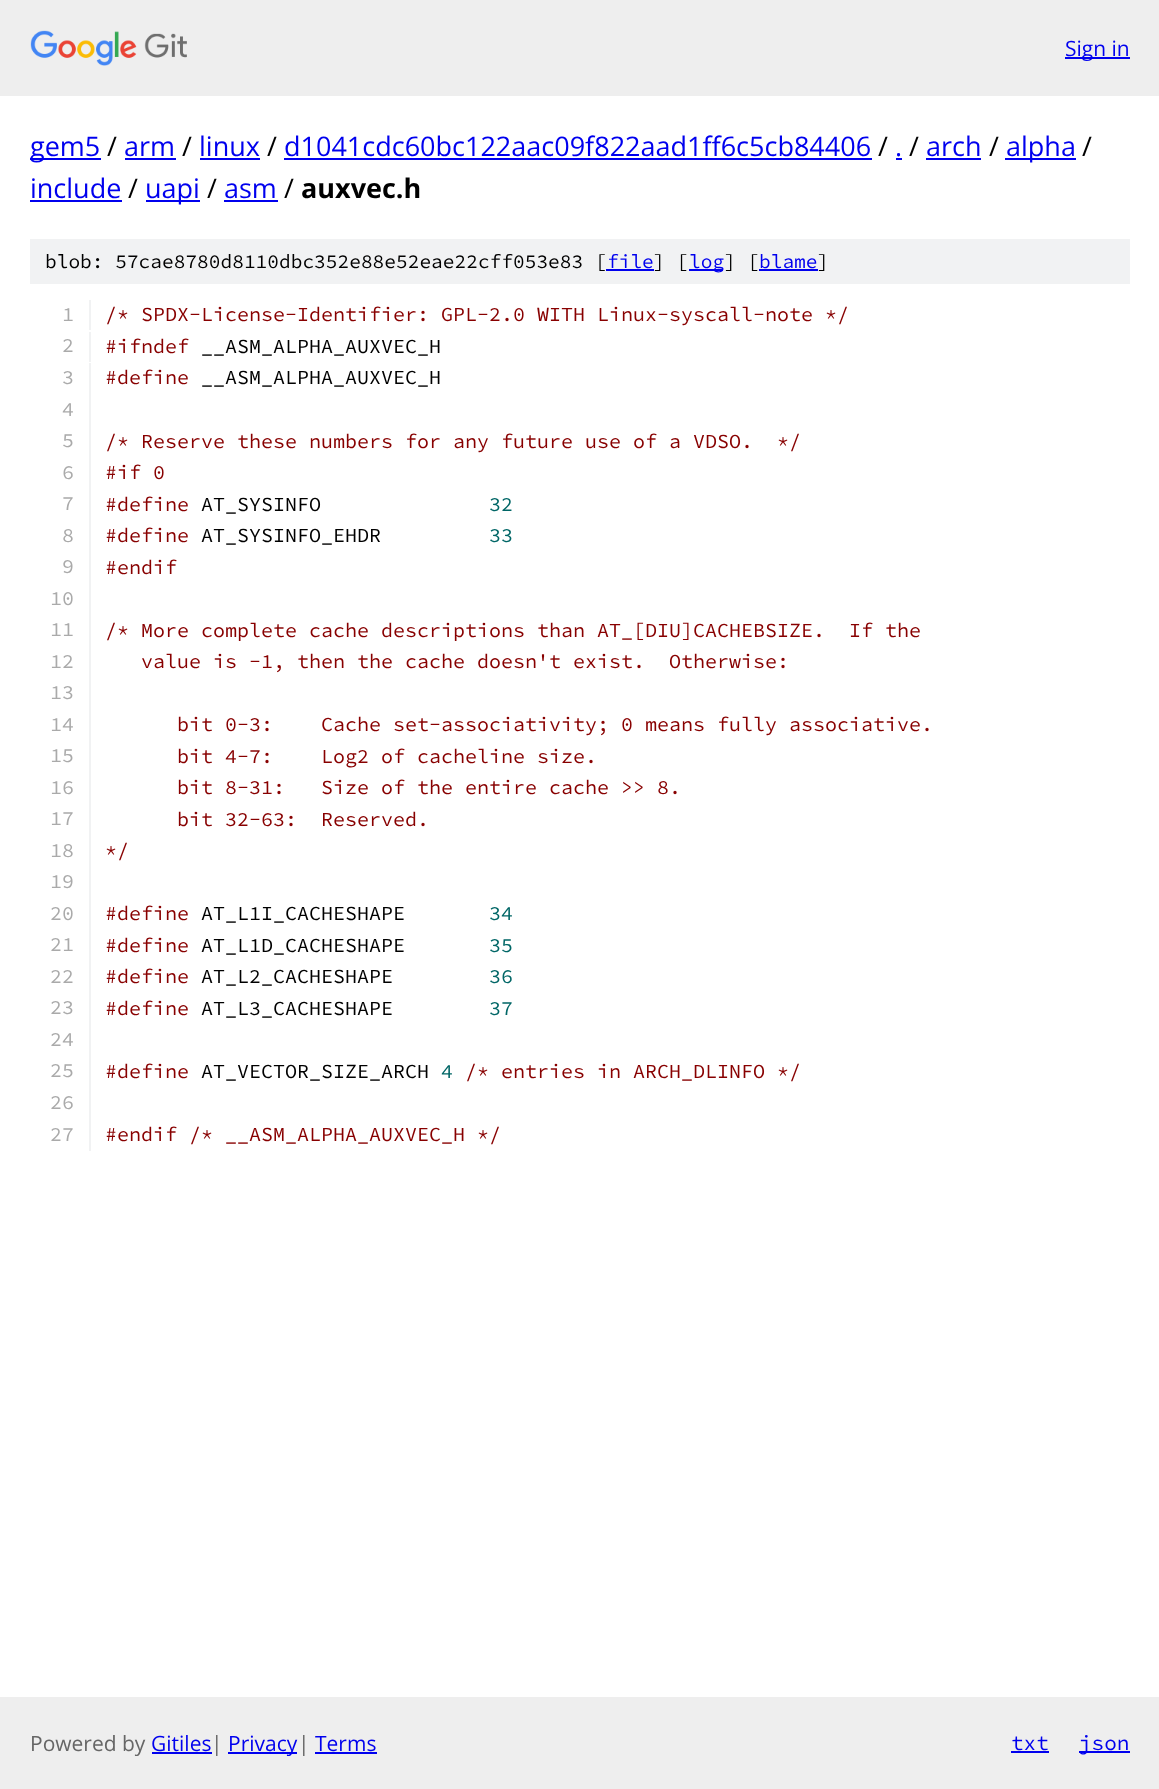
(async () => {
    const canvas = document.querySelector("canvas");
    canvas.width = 1159;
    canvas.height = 1789;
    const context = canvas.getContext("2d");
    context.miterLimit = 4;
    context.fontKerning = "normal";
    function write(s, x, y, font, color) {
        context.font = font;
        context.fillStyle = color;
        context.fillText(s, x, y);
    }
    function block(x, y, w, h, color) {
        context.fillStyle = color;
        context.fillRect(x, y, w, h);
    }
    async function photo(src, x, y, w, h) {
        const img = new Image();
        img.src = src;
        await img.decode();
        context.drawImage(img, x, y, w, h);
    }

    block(0, 0, 1159, 1789, "rgb(255, 255, 255)");
    block(0, 0, 1159, 96, "rgb(238, 238, 238)");
    await photo("media/1.png", 30, 30, 157, 36);
    block(1065, 57, 65, 2, "rgb(0, 0, 238)");
    write("Sign in", 1065, 56, "21px Open Sans", "rgb(0, 0, 238)");
    block(30, 158, 71, 2, "rgb(0, 0, 238)");
    write("gem5", 30, 156, "27px Open Sans", "rgb(0, 0, 238)");
    write("/", 107, 156, "27px Open Sans", "rgb(0, 0, 0)");
    write("arm", 124, 156, "27px Open Sans", "rgb(0, 0, 238)");
    block(125, 158, 51, 2, "rgb(0, 0, 238)");
    write("/", 182, 156, "27px Open Sans", "rgb(0, 0, 0)");
    write("linux", 199, 156, "27px Open Sans", "rgb(0, 0, 238)");
    block(200, 158, 60, 2, "rgb(0, 0, 238)");
    write("/", 267, 156, "27px Open Sans", "rgb(0, 0, 0)");
    write("d1041cdc60bc122aac09f822aad1ff6c5cb84406", 284, 156, "27px Open Sans", "rgb(0, 0, 238)");
    block(284, 158, 588, 2, "rgb(0, 0, 238)");
    write("/", 878, 156, "27px Open Sans", "rgb(0, 0, 0)");
    write(".", 895, 156, "27px Open Sans", "rgb(0, 0, 238)");
    block(896, 158, 6, 2, "rgb(0, 0, 238)");
    write("/", 909, 156, "27px Open Sans", "rgb(0, 0, 0)");
    write("arch", 926, 156, "27px Open Sans", "rgb(0, 0, 238)");
    block(926, 158, 55, 2, "rgb(0, 0, 238)");
    write("/", 989, 156, "27px Open Sans", "rgb(0, 0, 0)");
    block(1005, 158, 71, 2, "rgb(0, 0, 238)");
    write("alpha", 1006, 156, "27px Open Sans", "rgb(0, 0, 238)");
    write("/", 1082, 156, "27px Open Sans", "rgb(0, 0, 0)");
    write("include", 30, 198, "27px Open Sans", "rgb(0, 0, 238)");
    block(30, 200, 92, 2, "rgb(0, 0, 238)");
    write("/", 128, 198, "27px Open Sans", "rgb(0, 0, 0)");
    block(146, 200, 54, 2, "rgb(0, 0, 238)");
    write("uapi", 145, 198, "27px Open Sans", "rgb(0, 0, 238)");
    write("/", 207, 198, "27px Open Sans", "rgb(0, 0, 0)");
    write("asm", 224, 198, "27px Open Sans", "rgb(0, 0, 238)");
    block(224, 200, 54, 2, "rgb(0, 0, 238)");
    write("/", 284, 198, "27px Open Sans", "rgb(0, 0, 0)");
    write("auxvec.h", 301, 198, "bold 27px Open Sans", "rgb(0, 0, 0)");
    block(30, 239, 1100, 45, "rgb(241, 242, 243)");
    write("blob: 57cae8780d8110dbc352e88e52eae22cff053e83 [", 45, 268, "200 19.5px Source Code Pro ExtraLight", "rgb(0, 0, 0)");
    write("file", 607, 268, "200 19.5px Source Code Pro ExtraLight", "rgb(0, 0, 238)");
    block(606, 269, 48, 2, "rgb(0, 0, 238)");
    write("] [", 653, 268, "200 19.5px Source Code Pro ExtraLight", "rgb(0, 0, 0)");
    block(689, 269, 34, 2, "rgb(0, 0, 238)");
    write("log", 689, 268, "200 19.5px Source Code Pro ExtraLight", "rgb(0, 0, 238)");
    write("] [", 724, 268, "200 19.5px Source Code Pro ExtraLight", "rgb(0, 0, 0)");
    write("blame", 759, 268, "200 19.5px Source Code Pro ExtraLight", "rgb(0, 0, 238)");
    block(759, 269, 59, 2, "rgb(0, 0, 238)");
    write("]", 817, 268, "200 19.5px Source Code Pro ExtraLight", "rgb(0, 0, 0)");
    block(89, 300, 2, 30, "rgb(241, 242, 243)");
    write("1", 62, 321, "200 20px Source Code Pro ExtraLight", "rgb(170, 170, 170)");
    write("/* SPDX-License-Identifier: GPL-2.0 WITH Linux-syscall-note */", 105, 321, "200 20px Source Code Pro ExtraLight", "rgb(136, 0, 0)");
    block(89, 332, 2, 30, "rgb(241, 242, 243)");
    write("2", 62, 352, "200 20px Source Code Pro ExtraLight", "rgb(170, 170, 170)");
    write("#ifndef", 105, 353, "200 20px Source Code Pro ExtraLight", "rgb(136, 0, 0)");
    write("__ASM_ALPHA_AUXVEC_H", 201, 353, "200 20px Source Code Pro ExtraLight", "rgb(0, 0, 0)");
    block(89, 363, 2, 788, "rgb(241, 242, 243)");
    write("3", 62, 384, "200 20px Source Code Pro ExtraLight", "rgb(170, 170, 170)");
    write("#define", 105, 384, "200 20px Source Code Pro ExtraLight", "rgb(136, 0, 0)");
    write("__ASM_ALPHA_AUXVEC_H", 201, 384, "200 20px Source Code Pro ExtraLight", "rgb(0, 0, 0)");
    write("4", 62, 416, "200 20px Source Code Pro ExtraLight", "rgb(170, 170, 170)");
    write("5", 62, 447, "200 20px Source Code Pro ExtraLight", "rgb(170, 170, 170)");
    write("/* Reserve these numbers for any future use of a VDSO.  */", 105, 448, "200 20px Source Code Pro ExtraLight", "rgb(136, 0, 0)");
    write("6", 62, 479, "200 20px Source Code Pro ExtraLight", "rgb(170, 170, 170)");
    write("#if 0", 105, 479, "200 20px Source Code Pro ExtraLight", "rgb(136, 0, 0)");
    write("7", 62, 510, "200 20px Source Code Pro ExtraLight", "rgb(170, 170, 170)");
    write("#define", 105, 511, "200 20px Source Code Pro ExtraLight", "rgb(136, 0, 0)");
    write("AT_SYSINFO", 201, 511, "200 20px Source Code Pro ExtraLight", "rgb(0, 0, 0)");
    write("32", 489, 511, "200 20px Source Code Pro ExtraLight", "rgb(0, 102, 102)");
    write("8", 62, 542, "200 20px Source Code Pro ExtraLight", "rgb(170, 170, 170)");
    write("#define", 105, 542, "200 20px Source Code Pro ExtraLight", "rgb(136, 0, 0)");
    write("AT_SYSINFO_EHDR", 201, 542, "200 20px Source Code Pro ExtraLight", "rgb(0, 0, 0)");
    write("33", 489, 542, "200 20px Source Code Pro ExtraLight", "rgb(0, 102, 102)");
    write("9", 62, 573, "200 20px Source Code Pro ExtraLight", "rgb(170, 170, 170)");
    write("#endif", 105, 574, "200 20px Source Code Pro ExtraLight", "rgb(136, 0, 0)");
    write("10", 50, 605, "200 20px Source Code Pro ExtraLight", "rgb(170, 170, 170)");
    write("11", 50, 636, "200 20px Source Code Pro ExtraLight", "rgb(170, 170, 170)");
    write("/* More complete cache descriptions than AT_[DIU]CACHEBSIZE.  If the", 105, 637, "200 20px Source Code Pro ExtraLight", "rgb(136, 0, 0)");
    write("12", 50, 668, "200 20px Source Code Pro ExtraLight", "rgb(170, 170, 170)");
    write("value is -1, then the cache doesn't exist.  Otherwise:", 141, 668, "200 20px Source Code Pro ExtraLight", "rgb(136, 0, 0)");
    write("13", 50, 699, "200 20px Source Code Pro ExtraLight", "rgb(170, 170, 170)");
    write("14", 50, 731, "200 20px Source Code Pro ExtraLight", "rgb(170, 170, 170)");
    write("bit 0-3:", 177, 731, "200 20px Source Code Pro ExtraLight", "rgb(136, 0, 0)");
    write("Cache set-associativity; 0 means fully associative.", 321, 731, "200 20px Source Code Pro ExtraLight", "rgb(136, 0, 0)");
    write("15", 50, 762, "200 20px Source Code Pro ExtraLight", "rgb(170, 170, 170)");
    write("bit 4-7:", 177, 763, "200 20px Source Code Pro ExtraLight", "rgb(136, 0, 0)");
    write("Log2 of cacheline size.", 321, 763, "200 20px Source Code Pro ExtraLight", "rgb(136, 0, 0)");
    write("16", 50, 794, "200 20px Source Code Pro ExtraLight", "rgb(170, 170, 170)");
    write("bit 8-31:", 177, 794, "200 20px Source Code Pro ExtraLight", "rgb(136, 0, 0)");
    write("Size of the entire cache >> 8.", 321, 794, "200 20px Source Code Pro ExtraLight", "rgb(136, 0, 0)");
    write("17", 50, 825, "200 20px Source Code Pro ExtraLight", "rgb(170, 170, 170)");
    write("bit 32-63:  Reserved.", 177, 826, "200 20px Source Code Pro ExtraLight", "rgb(136, 0, 0)");
    write("18", 50, 857, "200 20px Source Code Pro ExtraLight", "rgb(170, 170, 170)");
    write("*/", 105, 857, "200 20px Source Code Pro ExtraLight", "rgb(136, 0, 0)");
    write("19", 50, 888, "200 20px Source Code Pro ExtraLight", "rgb(170, 170, 170)");
    write("20", 50, 920, "200 20px Source Code Pro ExtraLight", "rgb(170, 170, 170)");
    write("#define", 105, 920, "200 20px Source Code Pro ExtraLight", "rgb(136, 0, 0)");
    write("AT_L1I_CACHESHAPE", 201, 920, "200 20px Source Code Pro ExtraLight", "rgb(0, 0, 0)");
    write("34", 489, 920, "200 20px Source Code Pro ExtraLight", "rgb(0, 102, 102)");
    write("21", 50, 951, "200 20px Source Code Pro ExtraLight", "rgb(170, 170, 170)");
    write("#define", 105, 952, "200 20px Source Code Pro ExtraLight", "rgb(136, 0, 0)");
    write("AT_L1D_CACHESHAPE", 201, 952, "200 20px Source Code Pro ExtraLight", "rgb(0, 0, 0)");
    write("35", 489, 952, "200 20px Source Code Pro ExtraLight", "rgb(0, 102, 102)");
    write("22", 50, 983, "200 20px Source Code Pro ExtraLight", "rgb(170, 170, 170)");
    write("#define", 105, 983, "200 20px Source Code Pro ExtraLight", "rgb(136, 0, 0)");
    write("AT_L2_CACHESHAPE", 201, 983, "200 20px Source Code Pro ExtraLight", "rgb(0, 0, 0)");
    write("36", 489, 983, "200 20px Source Code Pro ExtraLight", "rgb(0, 102, 102)");
    write("23", 50, 1014, "200 20px Source Code Pro ExtraLight", "rgb(170, 170, 170)");
    write("#define", 105, 1015, "200 20px Source Code Pro ExtraLight", "rgb(136, 0, 0)");
    write("AT_L3_CACHESHAPE", 201, 1015, "200 20px Source Code Pro ExtraLight", "rgb(0, 0, 0)");
    write("37", 489, 1015, "200 20px Source Code Pro ExtraLight", "rgb(0, 102, 102)");
    write("24", 50, 1046, "200 20px Source Code Pro ExtraLight", "rgb(170, 170, 170)");
    write("25", 50, 1077, "200 20px Source Code Pro ExtraLight", "rgb(170, 170, 170)");
    write("#define", 105, 1078, "200 20px Source Code Pro ExtraLight", "rgb(136, 0, 0)");
    write("AT_VECTOR_SIZE_ARCH", 201, 1078, "200 20px Source Code Pro ExtraLight", "rgb(0, 0, 0)");
    write("4", 441, 1078, "200 20px Source Code Pro ExtraLight", "rgb(0, 102, 102)");
    write("/* entries in ARCH_DLINFO */", 465, 1078, "200 20px Source Code Pro ExtraLight", "rgb(136, 0, 0)");
    write("26", 50, 1109, "200 20px Source Code Pro ExtraLight", "rgb(170, 170, 170)");
    write("27", 50, 1141, "200 20px Source Code Pro ExtraLight", "rgb(170, 170, 170)");
    write("#endif /* __ASM_ALPHA_AUXVEC_H */", 105, 1141, "200 20px Source Code Pro ExtraLight", "rgb(136, 0, 0)");
    block(0, 1697, 1159, 92, "rgb(238, 238, 238)");
    write("Powered by", 30, 1751, "21px Open Sans", "rgb(102, 102, 102)");
    write("Gitiles", 151, 1751, "21px Open Sans", "rgb(0, 0, 238)");
    block(152, 1752, 60, 2, "rgb(0, 0, 238)");
    write("|", 211, 1751, "21px Open Sans", "rgb(102, 102, 102)");
    block(228, 1752, 69, 2, "rgb(0, 0, 238)");
    write("Privacy", 228, 1751, "21px Open Sans", "rgb(0, 0, 238)");
    write("|", 298, 1751, "21px Open Sans", "rgb(102, 102, 102)");
    write("Terms", 315, 1751, "21px Open Sans", "rgb(0, 0, 238)");
    block(315, 1752, 62, 2, "rgb(0, 0, 238)");
    write("txt", 1011, 1750, "200 21px Source Code Pro ExtraLight", "rgb(0, 0, 238)");
    block(1011, 1751, 38, 2, "rgb(0, 0, 238)");
    block(1079, 1751, 51, 2, "rgb(0, 0, 238)");
    write("json", 1079, 1750, "200 21px Source Code Pro ExtraLight", "rgb(0, 0, 238)");
})();
